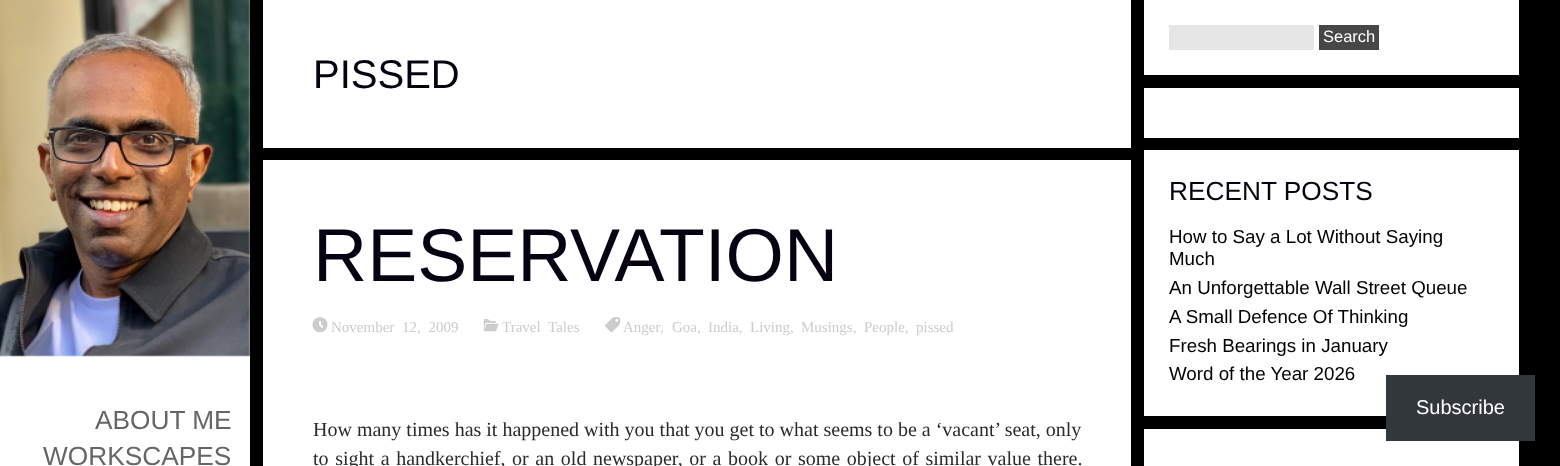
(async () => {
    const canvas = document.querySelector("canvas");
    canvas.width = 1560;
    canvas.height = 466;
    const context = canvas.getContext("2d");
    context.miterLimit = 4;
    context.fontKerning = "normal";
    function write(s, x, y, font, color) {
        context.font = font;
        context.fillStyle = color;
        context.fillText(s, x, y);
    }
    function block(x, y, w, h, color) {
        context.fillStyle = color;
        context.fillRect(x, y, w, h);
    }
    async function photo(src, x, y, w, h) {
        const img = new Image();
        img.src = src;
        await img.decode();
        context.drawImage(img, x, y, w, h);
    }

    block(0, 0, 1560, 466, "rgb(0, 0, 0)");
    block(0, 356, 250, 110, "rgb(255, 255, 255)");
    block(263, 0, 868, 148, "rgb(255, 255, 255)");
    write("PISSED", 313, 88, "40px Liberation Sans", "rgb(7, 2, 17)");
    block(263, 160, 868, 306, "rgb(255, 255, 255)");
    write("RESERVATION", 313, 281, "75px Liberation Sans", "rgb(7, 2, 17)");
    await photo("media/1.png", 312, 317, 16, 16);
    context.wordSpacing = "4px";
    write("November 12, 2009", 331, 332, "15px Liberation Serif", "rgb(204, 204, 204)");
    await photo("media/2.png", 483, 319, 16, 13);
    write("Travel Tales", 502, 332, "15px Liberation Serif", "rgb(204, 204, 204)");
    await photo("media/3.png", 605, 317, 15, 16);
    context.wordSpacing = "0px";
    write("Anger", 623, 332, "15px Liberation Serif", "rgb(204, 204, 204)");
    write(",", 660, 332, "15px Liberation Serif", "rgb(204, 204, 204)");
    write("Goa,", 672, 332, "15px Liberation Serif", "rgb(204, 204, 204)");
    write("India,", 708, 332, "15px Liberation Serif", "rgb(204, 204, 204)");
    write("Living,", 750, 332, "15px Liberation Serif", "rgb(204, 204, 204)");
    write("Musings,", 801, 332, "15px Liberation Serif", "rgb(204, 204, 204)");
    write("People,", 864, 332, "15px Liberation Serif", "rgb(204, 204, 204)");
    write("pissed", 916, 332, "15px Liberation Serif", "rgb(204, 204, 204)");
    write("How many times has it happened with you that you get to what seems to be a ‘vacant’ seat, only", 313, 436, "20px Liberation Serif", "rgb(43, 43, 43)");
    context.wordSpacing = "1.6px";
    write("to sight a handkerchief, or an old newspaper, or a book or some object of similar value there.", 313, 465, "20px Liberation Serif", "rgb(43, 43, 43)");
    block(1144, 0, 375, 75, "rgb(255, 255, 255)");
    block(1169, 25, 145, 25, "rgb(230, 230, 230)");
    block(1319, 25, 60, 25, "rgb(71, 71, 71)");
    context.wordSpacing = "0px";
    write("Search", 1323, 42, "16.5px Liberation Sans", "rgb(255, 255, 255)");
    block(1144, 88, 375, 50, "rgb(255, 255, 255)");
    block(1144, 150, 375, 266, "rgb(255, 255, 255)");
    write("RECENT POSTS", 1169, 200, "26.25px Liberation Sans", "rgb(7, 2, 17)");
    write("How to Say a Lot Without Saying", 1169, 243, "18.75px Liberation Sans", "rgb(0, 0, 0)");
    write("Much", 1169, 265, "18.75px Liberation Sans", "rgb(0, 0, 0)");
    write("An Unforgettable Wall Street Queue", 1169, 294, "18.75px Liberation Sans", "rgb(0, 0, 0)");
    write("A Small Defence Of Thinking", 1169, 323, "18.75px Liberation Sans", "rgb(0, 0, 0)");
    write("Fresh Bearings in January", 1169, 352, "18.75px Liberation Sans", "rgb(0, 0, 0)");
    write("Word of the Year 2026", 1169, 380, "18.75px Liberation Sans", "rgb(0, 0, 0)");
    block(1144, 429, 375, 37, "rgb(255, 255, 255)");
    await photo("media/4.png", 0, 0, 250, 357);
    write("ABOUT ME", 95, 429, "26.25px Liberation Sans", "rgb(102, 102, 102)");
    write("WORKSCAPES", 43, 465, "26.25px Liberation Sans", "rgb(102, 102, 102)");
    block(1386, 375, 149, 66, "rgb(50, 55, 60)");
    write("Subscribe", 1416, 414, "20px Liberation Sans", "rgb(255, 255, 255)");
})();
